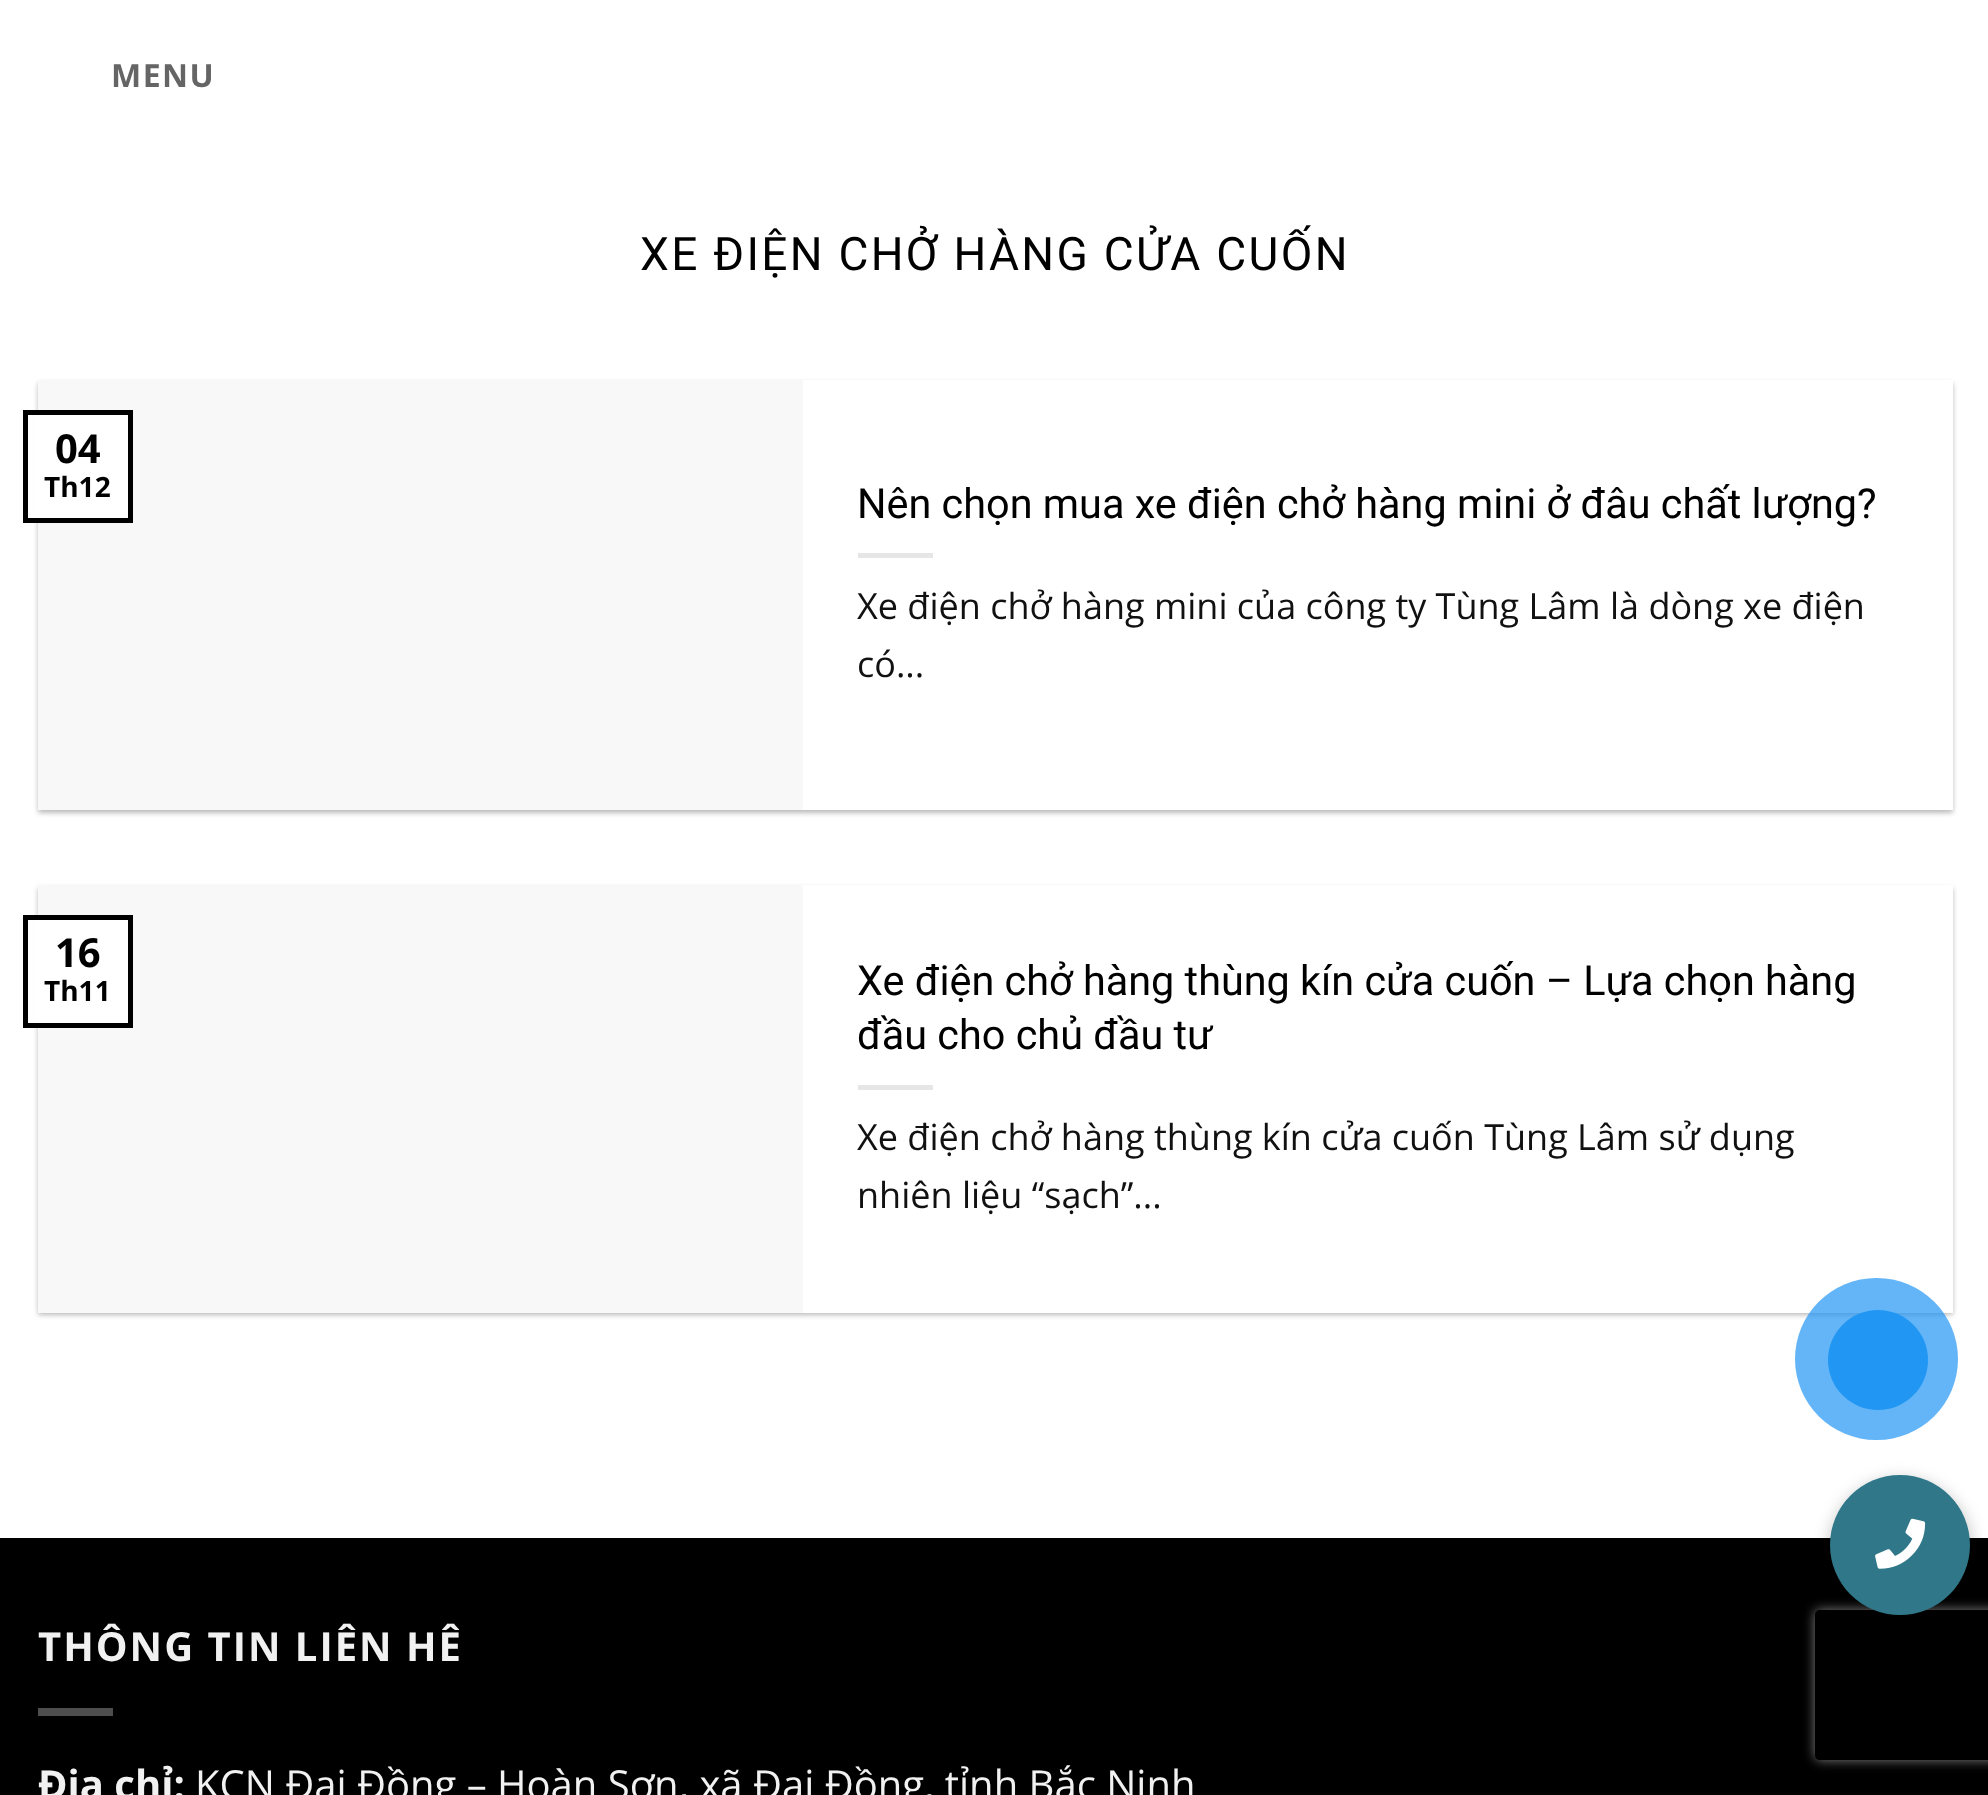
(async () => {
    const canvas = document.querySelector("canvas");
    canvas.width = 1988;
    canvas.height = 1795;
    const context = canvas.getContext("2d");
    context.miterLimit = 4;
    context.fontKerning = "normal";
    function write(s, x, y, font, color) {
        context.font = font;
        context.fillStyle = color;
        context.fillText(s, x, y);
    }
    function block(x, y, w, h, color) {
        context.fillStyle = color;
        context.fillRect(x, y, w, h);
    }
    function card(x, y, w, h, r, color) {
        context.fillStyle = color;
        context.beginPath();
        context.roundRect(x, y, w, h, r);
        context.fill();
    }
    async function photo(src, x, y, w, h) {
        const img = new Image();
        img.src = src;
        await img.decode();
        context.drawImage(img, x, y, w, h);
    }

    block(0, 0, 1988, 1795, "rgb(255, 255, 255)");
    context.letterSpacing = "1.5px";
    write("MENU", 111, 87, "bold 32px Open Sans", "rgb(101, 101, 101)");
    context.letterSpacing = "2.3px";
    write("XE ĐIỆN CHỞ HÀNG CỬA CUỐN", 640, 270, "46px Roboto", "rgb(0, 0, 0)");
    context.fillStyle = "rgba(0, 0, 0, 0.24)";
    context.filter = "blur(2.5px)";
    context.beginPath();
    context.rect(38, 383, 1915, 430);
    context.fill();
    context.filter = "none";
    context.fillStyle = "rgba(0, 0, 0, 0.12)";
    context.filter = "blur(4px)";
    context.beginPath();
    context.rect(43, 388, 1905, 420);
    context.fill();
    context.filter = "none";
    block(803, 380, 1150, 430, "rgb(255, 255, 255)");
    block(38, 380, 765, 430, "rgb(248, 248, 248)");
    block(34, 415, 94, 103, "rgb(255, 255, 255)");
    context.strokeStyle = "rgb(0, 0, 0)";
    context.lineWidth = 5;
    context.strokeRect(25.5, 412.5, 105, 108);
    context.letterSpacing = "0px";
    write("04", 55, 463, "bold 40px Open Sans", "rgb(0, 0, 0)");
    write("Th12", 44, 497, "bold 28px Open Sans", "rgb(0, 0, 0)");
    write("Nên chọn mua xe điện chở hàng mini ở đâu chất lượng?", 857, 518, "41.4px Roboto", "rgb(0, 0, 0)");
    block(858, 553, 75, 5, "rgb(230, 230, 230)");
    write("Xe điện chở hàng mini của công ty Tùng Lâm là dòng xe điện", 857, 619, "36px Open Sans", "rgb(17, 17, 17)");
    write("có...", 857, 677, "36px Open Sans", "rgb(17, 17, 17)");
    context.fillStyle = "rgba(0, 0, 0, 0.24)";
    context.filter = "blur(2.5px)";
    context.beginPath();
    context.rect(38, 888, 1915, 427);
    context.fill();
    context.filter = "none";
    context.fillStyle = "rgba(0, 0, 0, 0.12)";
    context.filter = "blur(4px)";
    context.beginPath();
    context.rect(43, 893, 1905, 417);
    context.fill();
    context.filter = "none";
    block(803, 885, 1150, 428, "rgb(255, 255, 255)");
    block(38, 885, 765, 428, "rgb(248, 248, 248)");
    block(34, 920, 94, 103, "rgb(255, 255, 255)");
    context.strokeRect(25.5, 917.5, 105, 108);
    write("16", 55, 967, "bold 40px Open Sans", "rgb(0, 0, 0)");
    write("Th11", 44, 1001, "bold 28px Open Sans", "rgb(0, 0, 0)");
    write("Xe điện chở hàng thùng kín cửa cuốn – Lựa chọn hàng", 857, 995, "41.4px Roboto", "rgb(0, 0, 0)");
    write("đầu cho chủ đầu tư", 857, 1049, "41.4px Roboto", "rgb(0, 0, 0)");
    block(858, 1085, 75, 5, "rgb(230, 230, 230)");
    write("Xe điện chở hàng thùng kín cửa cuốn Tùng Lâm sử dụng", 857, 1150, "36px Open Sans", "rgb(17, 17, 17)");
    write("nhiên liệu “sạch”...", 857, 1208, "36px Open Sans", "rgb(17, 17, 17)");
    block(0, 1538, 1988, 257, "rgb(0, 0, 0)");
    context.letterSpacing = "2px";
    write("THÔNG TIN LIÊN HÊ", 38, 1661, "bold 40px Open Sans", "rgb(241, 241, 241)");
    block(38, 1708, 75, 8, "rgb(77, 77, 77)");
    context.letterSpacing = "0px";
    write("Địa chỉ:", 38, 1799, "bold 40px Open Sans", "rgb(241, 241, 241)");
    write("KCN Đại Đồng – Hoàn Sơn, xã Đại Đồng, tỉnh Bắc Ninh", 195, 1799, "40px Open Sans", "rgb(241, 241, 241)");
    card(1795, 1278, 163, 162, 81, "rgba(33, 150, 243, 0.7)");
    context.fillStyle = "rgb(33, 150, 243)";
    context.beginPath();
    context.arc(1878, 1360, 50, 0, Math.PI * 2);
    context.fill();
    context.fillStyle = "rgba(0, 0, 0, 0.2)";
    context.filter = "blur(7.5px)";
    context.beginPath();
    context.roundRect(1828, 1478, 145, 145, 72.5);
    context.fill();
    context.filter = "none";
    context.save();
    context.beginPath();
    context.moveTo(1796, 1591);
    context.lineTo(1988, 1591);
    context.lineTo(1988, 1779);
    context.lineTo(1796, 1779);
    context.closePath();
    context.moveTo(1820, 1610);
    context.lineTo(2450, 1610);
    context.bezierCurveTo(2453, 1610, 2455, 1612, 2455, 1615);
    context.lineTo(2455, 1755);
    context.bezierCurveTo(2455, 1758, 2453, 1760, 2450, 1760);
    context.lineTo(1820, 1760);
    context.bezierCurveTo(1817, 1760, 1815, 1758, 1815, 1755);
    context.lineTo(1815, 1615);
    context.bezierCurveTo(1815, 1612, 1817, 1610, 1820, 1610);
    context.closePath();
    context.clip("evenodd");
    context.fillStyle = "rgb(128, 128, 128)";
    context.filter = "blur(6px)";
    context.beginPath();
    context.roundRect(1815, 1610, 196, 150, 5);
    context.fill();
    context.filter = "none";
    context.restore();
    context.fillStyle = "rgb(47, 119, 137)";
    context.beginPath();
    context.arc(1900, 1545, 70, 0, Math.PI * 2);
    context.fill();
    await photo("media/1.png", 1875, 1518, 51, 51);
})();
